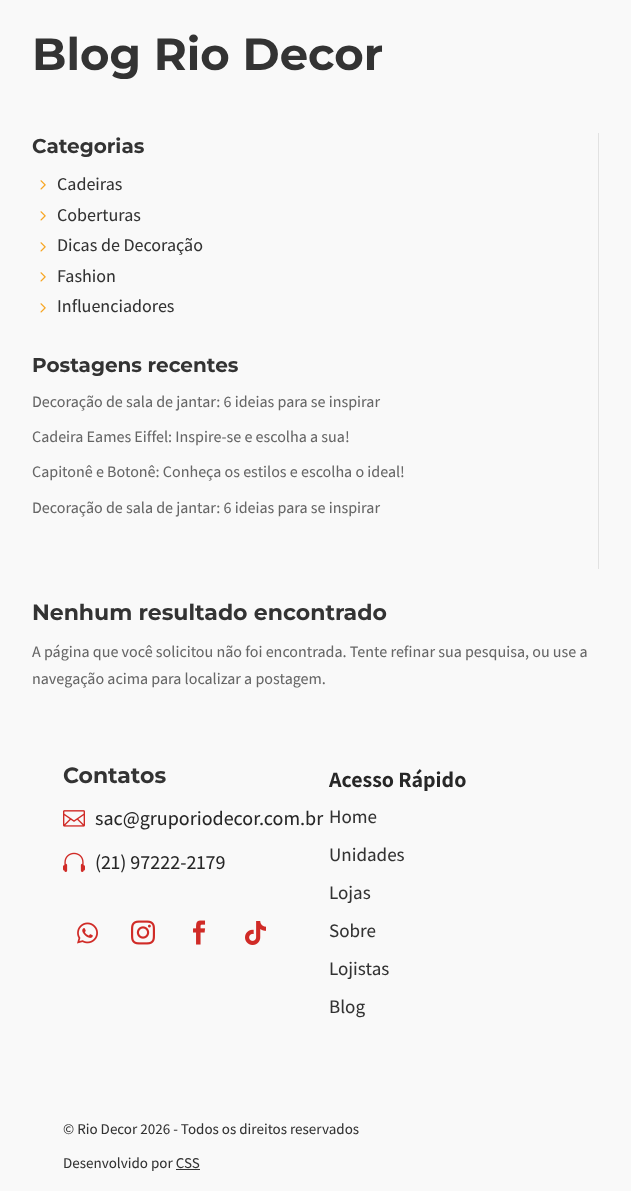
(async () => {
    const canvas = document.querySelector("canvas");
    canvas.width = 631;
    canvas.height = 1191;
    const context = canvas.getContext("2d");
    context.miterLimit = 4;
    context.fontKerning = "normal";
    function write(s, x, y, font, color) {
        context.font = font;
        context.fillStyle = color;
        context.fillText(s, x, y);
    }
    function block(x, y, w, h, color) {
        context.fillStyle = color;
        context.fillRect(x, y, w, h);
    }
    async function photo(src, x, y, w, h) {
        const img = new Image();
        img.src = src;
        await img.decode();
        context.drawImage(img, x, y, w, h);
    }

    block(0, 0, 631, 1191, "rgb(249, 249, 249)");
    write("Blog Rio Decor", 32, 70, "bold 45px Montserrat", "rgb(51, 51, 51)");
    block(598, 133, 1, 436, "rgb(226, 226, 226)");
    write("Categorias", 32, 153, "bold 20px Montserrat", "rgb(51, 51, 51)");
    await photo("media/1.png", 40, 180, 6, 10);
    write("Cadeiras", 57, 190, "500 18px Assistant", "rgb(51, 51, 51)");
    await photo("media/1.png", 40, 211, 6, 10);
    write("Coberturas", 57, 221, "500 18px Assistant", "rgb(51, 51, 51)");
    await photo("media/1.png", 40, 242, 6, 10);
    write("Dicas de Decoração", 57, 251, "500 18px Assistant", "rgb(51, 51, 51)");
    await photo("media/1.png", 40, 272, 6, 10);
    write("Fashion", 57, 282, "500 18px Assistant", "rgb(51, 51, 51)");
    await photo("media/1.png", 40, 303, 6, 10);
    write("Influenciadores", 57, 312, "500 18px Assistant", "rgb(51, 51, 51)");
    write("Postagens recentes", 32, 372, "bold 20px Montserrat", "rgb(51, 51, 51)");
    write("Decoração de sala de jantar: 6 ideias para se inspirar", 32, 407, "500 16px Assistant", "rgb(102, 102, 102)");
    write("Cadeira Eames Eiffel: Inspire-se e escolha a sua!", 32, 442, "500 16px Assistant", "rgb(102, 102, 102)");
    write("Capitonê e Botonê: Conheça os estilos e escolha o ideal!", 32, 477, "500 16px Assistant", "rgb(102, 102, 102)");
    write("Decoração de sala de jantar: 6 ideias para se inspirar", 32, 513, "500 16px Assistant", "rgb(102, 102, 102)");
    write("Nenhum resultado encontrado", 32, 620, "bold 22px Montserrat", "rgb(51, 51, 51)");
    write("A página que você solicitou não foi encontrada. Tente refinar sua pesquisa, ou use a", 32, 657, "500 16px Assistant", "rgb(102, 102, 102)");
    write("navegação acima para localizar a postagem.", 32, 684, "500 16px Assistant", "rgb(102, 102, 102)");
    write("Contatos", 63, 783, "bold 22px Montserrat", "rgb(51, 51, 51)");
    await photo("media/2.png", 63, 810, 22, 17);
    write("sac@gruporiodecor.com.br", 95, 825, "500 20px Assistant", "rgb(39, 39, 39)");
    await photo("media/3.png", 63, 852, 22, 20);
    write("(21) 97222-2179", 95, 869, "500 20px Assistant", "rgb(39, 39, 39)");
    await photo("media/4.png", 77, 922, 21, 22);
    await photo("media/5.png", 131, 920, 24, 25);
    await photo("media/6.png", 193, 920, 13, 25);
    await photo("media/7.png", 245, 921, 21, 24);
    write("Acesso Rápido", 329, 787, "bold 22px Assistant", "rgb(39, 39, 39)");
    write("Home", 329, 823, "500 19px Assistant", "rgb(51, 51, 51)");
    write("Unidades", 329, 861, "500 19px Assistant", "rgb(51, 51, 51)");
    write("Lojas", 329, 899, "500 19px Assistant", "rgb(51, 51, 51)");
    write("Sobre", 329, 937, "500 19px Assistant", "rgb(51, 51, 51)");
    write("Lojistas", 329, 975, "500 19px Assistant", "rgb(51, 51, 51)");
    write("Blog", 329, 1013, "500 19px Assistant", "rgb(51, 51, 51)");
    write("© Rio Decor 2026 - Todos os direitos reservados", 63, 1134, "500 15px Assistant", "rgb(51, 51, 51)");
    write("Desenvolvido por CSS", 63, 1168, "500 15px Assistant", "rgb(51, 51, 51)");
    block(176, 1169, 24, 1, "rgb(52, 52, 52)");
})();
